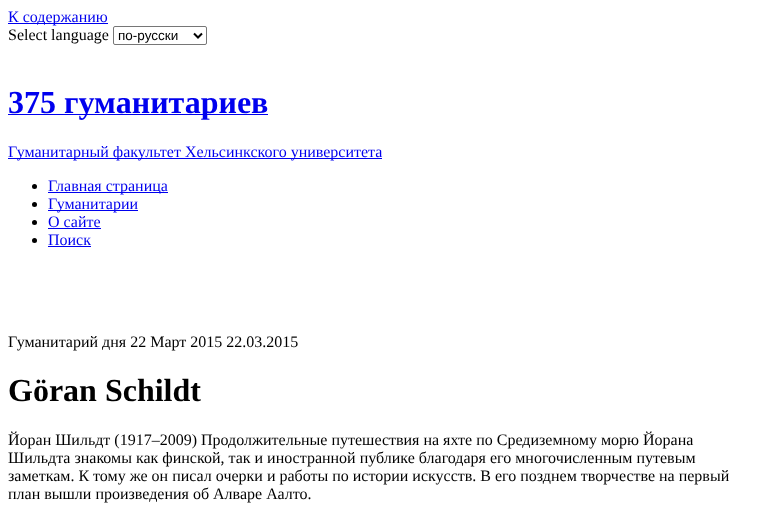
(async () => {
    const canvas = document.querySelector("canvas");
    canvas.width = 760;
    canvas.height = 505;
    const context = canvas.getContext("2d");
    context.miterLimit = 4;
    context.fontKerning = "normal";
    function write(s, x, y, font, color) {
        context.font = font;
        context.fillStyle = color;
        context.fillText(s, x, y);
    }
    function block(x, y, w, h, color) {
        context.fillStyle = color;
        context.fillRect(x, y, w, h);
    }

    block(0, 0, 760, 505, "rgb(255, 255, 255)");
    block(8, 23, 100, 1, "rgb(0, 0, 238)");
    write("К содержанию", 8, 22, "16px Liberation Serif", "rgb(0, 0, 238)");
    write("Select language", 8, 40, "16px Liberation Serif", "rgb(0, 0, 0)");
    context.beginPath();
    context.roundRect(113.5, 26.5, 93, 18, 1.5);
    context.strokeStyle = "rgb(118, 118, 118)";
    context.stroke();
    context.beginPath();
    context.moveTo(194, 33.5);
    context.lineTo(198, 37.5);
    context.lineTo(202, 33.5);
    context.strokeStyle = "rgb(0, 0, 0)";
    context.lineWidth = 2;
    context.stroke();
    write("по-русски", 118, 40, "13.5px Liberation Sans", "rgb(0, 0, 0)");
    block(8, 114, 260, 1, "rgb(0, 0, 238)");
    write("375 гуманитариев", 8, 113, "bold 32px Liberation Serif", "rgb(0, 0, 238)");
    block(8, 158, 374, 1, "rgb(0, 0, 238)");
    write("Гуманитарный факультет Хельсинкского университета", 8, 157, "16px Liberation Serif", "rgb(0, 0, 238)");
    context.fillStyle = "rgb(0, 0, 0)";
    context.beginPath();
    context.arc(34.5, 186.5, 2.5, 0, Math.PI * 2);
    context.fill();
    block(48, 192, 120, 1, "rgb(0, 0, 238)");
    write("Главная страница", 48, 191, "16px Liberation Serif", "rgb(0, 0, 238)");
    context.fillStyle = "rgb(0, 0, 0)";
    context.beginPath();
    context.arc(34.5, 204.5, 2.5, 0, Math.PI * 2);
    context.fill();
    block(48, 210, 90, 1, "rgb(0, 0, 238)");
    write("Гуманитарии", 48, 209, "16px Liberation Serif", "rgb(0, 0, 238)");
    context.fillStyle = "rgb(0, 0, 0)";
    context.beginPath();
    context.arc(34.5, 222.5, 2.5, 0, Math.PI * 2);
    context.fill();
    write("О сайте", 48, 227, "16px Liberation Serif", "rgb(0, 0, 238)");
    block(48, 228, 53, 1, "rgb(0, 0, 238)");
    context.fillStyle = "rgb(0, 0, 0)";
    context.beginPath();
    context.arc(34.5, 240.5, 2.5, 0, Math.PI * 2);
    context.fill();
    write("Поиск", 48, 245, "16px Liberation Serif", "rgb(0, 0, 238)");
    block(48, 246, 43, 1, "rgb(0, 0, 238)");
    write("Гуманитарий дня 22 Март 2015 22.03.2015", 8, 347, "16px Liberation Serif", "rgb(0, 0, 0)");
    write("Göran Schildt", 8, 401, "bold 32px Liberation Serif", "rgb(0, 0, 0)");
    write("Йоран Шильдт (1917–2009) Продолжительные путешествия на яхте по Средиземному морю Йорана", 8, 445, "16px Liberation Serif", "rgb(0, 0, 0)");
    write("Шильдта знакомы как финской, так и иностранной публике благодаря его многочисленным путевым", 8, 463, "16px Liberation Serif", "rgb(0, 0, 0)");
    write("заметкам. К тому же он писал очерки и работы по истории искусств. В его позднем творчестве на первый", 8, 481, "16px Liberation Serif", "rgb(0, 0, 0)");
    write("план вышли произведения об Алваре Аалто.", 8, 499, "16px Liberation Serif", "rgb(0, 0, 0)");
})();
